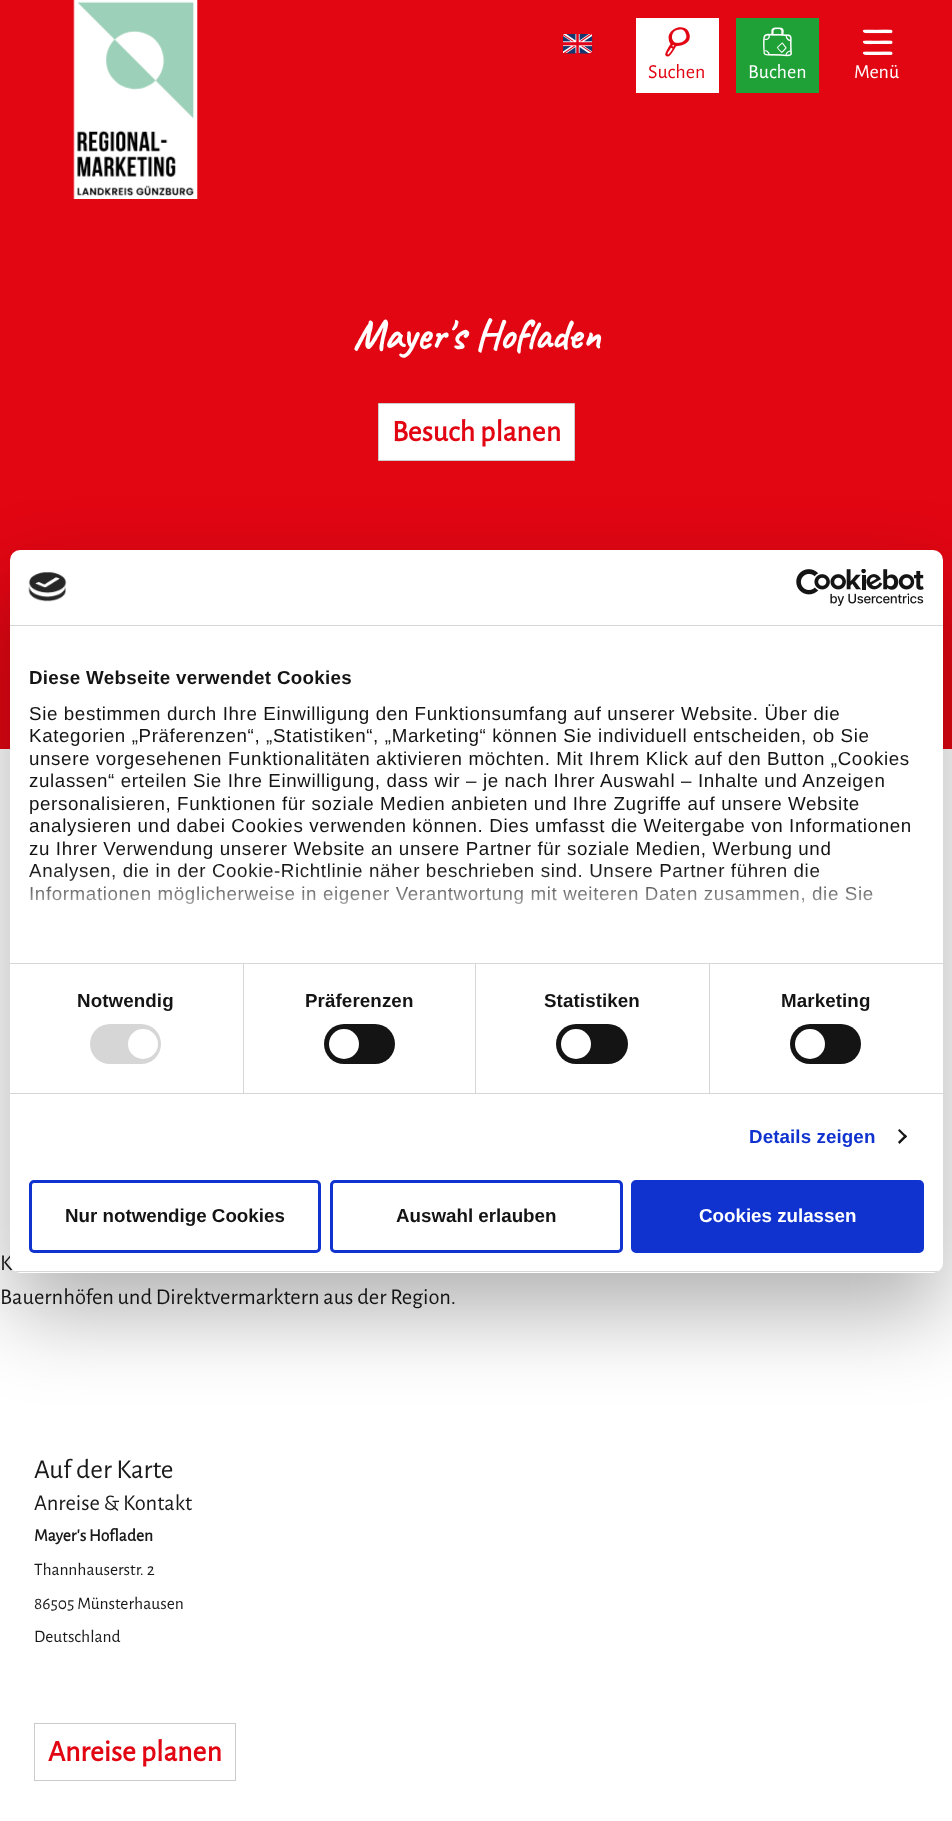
(async () => {
    const canvas = document.querySelector("canvas");
    canvas.width = 952;
    canvas.height = 1821;
    const context = canvas.getContext("2d");
    context.miterLimit = 4;
    context.fontKerning = "normal";
    function write(s, x, y, font, color) {
        context.font = font;
        context.fillStyle = color;
        context.fillText(s, x, y);
    }
    function block(x, y, w, h, color) {
        context.fillStyle = color;
        context.fillRect(x, y, w, h);
    }
    function card(x, y, w, h, r, color) {
        context.fillStyle = color;
        context.beginPath();
        context.roundRect(x, y, w, h, r);
        context.fill();
    }
    async function photo(src, x, y, w, h) {
        const img = new Image();
        img.src = src;
        await img.decode();
        context.drawImage(img, x, y, w, h);
    }
    let gradient;

    block(0, 0, 952, 1821, "rgb(255, 255, 255)");
    block(0, 0, 952, 749, "rgb(226, 6, 19)");
    await photo("media/1.png", 73, 0, 125, 199);
    await photo("media/2.png", 563, 34, 30, 20);
    block(636, 18, 83, 75, "rgb(255, 255, 255)");
    await photo("media/3.png", 665, 27, 25, 30);
    write("Suchen", 648, 78, "20px Alegreya Sans", "rgb(226, 6, 19)");
    block(736, 18, 83, 75, "rgb(31, 161, 56)");
    await photo("media/4.png", 763, 27, 29, 30);
    write("Buchen", 748, 78, "20px Alegreya Sans", "rgb(255, 255, 255)");
    await photo("media/5.png", 862, 29, 31, 26);
    write("Menü", 854, 78, "20px Alegreya Sans", "rgb(255, 255, 255)");
    write("Mayer's Hofladen", 353, 349, "bold 42.5px Caveat", "rgb(255, 255, 255)");
    context.beginPath();
    context.rect(378.5, 403.5, 196, 57);
    context.fill();
    context.strokeStyle = "rgb(203, 203, 203)";
    context.stroke();
    write("Besuch planen", 392, 441, "bold 30px Alegreya Sans", "rgb(226, 6, 19)");
    write("K", 0, 1270, "22.5px Alegreya Sans", "rgb(26, 26, 26)");
    write("Bauernhöfen und Direktvermarktern aus der Region.", 0, 1304, "22.5px Alegreya Sans", "rgb(26, 26, 26)");
    write("Auf der Karte", 34, 1478, "27.5px Alegreya Sans", "rgb(26, 26, 26)");
    write("Anreise & Kontakt", 34, 1510, "22.5px Alegreya Sans", "rgb(26, 26, 26)");
    write("Mayer's Hofladen", 34, 1541, "bold 17.5px Alegreya Sans", "rgb(26, 26, 26)");
    write("Thannhauserstr. 2", 34, 1575, "17.5px Alegreya Sans", "rgb(26, 26, 26)");
    write("86505 Münsterhausen", 34, 1609, "17.5px Alegreya Sans", "rgb(26, 26, 26)");
    write("Deutschland", 34, 1642, "17.5px Alegreya Sans", "rgb(26, 26, 26)");
    context.strokeRect(34.5, 1723.5, 201, 57);
    write("Anreise planen", 48, 1761, "bold 30px Alegreya Sans", "rgb(226, 6, 19)");
    context.fillStyle = "rgba(0, 0, 0, 0.3)";
    context.filter = "blur(42.5px)";
    context.beginPath();
    context.roundRect(10, 590, 933, 723, 10);
    context.fill();
    context.filter = "none";
    card(10, 550, 933, 723, 10, "rgb(255, 255, 255)");
    block(10, 625, 933, 1, "rgb(214, 214, 214)");
    await photo("media/6.png", 28, 572, 39, 30);
    await photo("media/7.png", 796, 569, 128, 37);
    block(10, 963, 933, 1, "rgb(214, 214, 214)");
    context.letterSpacing = "0.3px";
    write("Diese Webseite verwendet Cookies", 29, 684, "bold 18.75px Liberation Sans", "rgb(20, 20, 20)");
    context.letterSpacing = "0.62px";
    write("Sie bestimmen durch Ihre Einwilligung den Funktionsumfang auf unserer Website. Über die", 29, 720, "18.75px Liberation Sans", "rgb(20, 20, 20)");
    write("Kategorien „Präferenzen“, „Statistiken“, „Marketing“ können Sie individuell entscheiden, ob Sie", 29, 742, "18.75px Liberation Sans", "rgb(20, 20, 20)");
    write("unsere vorgesehenen Funktionalitäten aktivieren möchten. Mit Ihrem Klick auf den Button „Cookies", 29, 765, "18.75px Liberation Sans", "rgb(20, 20, 20)");
    write("zulassen“ erteilen Sie Ihre Einwilligung, dass wir – je nach Ihrer Auswahl – Inhalte und Anzeigen", 29, 787, "18.75px Liberation Sans", "rgb(20, 20, 20)");
    write("personalisieren, Funktionen für soziale Medien anbieten und Ihre Zugriffe auf unsere Website", 29, 810, "18.75px Liberation Sans", "rgb(20, 20, 20)");
    write("analysieren und dabei Cookies verwenden können. Dies umfasst die Weitergabe von Informationen", 29, 832, "18.75px Liberation Sans", "rgb(20, 20, 20)");
    write("zu Ihrer Verwendung unserer Website an unsere Partner für soziale Medien, Werbung und", 29, 855, "18.75px Liberation Sans", "rgb(20, 20, 20)");
    write("Analysen, die in der Cookie-Richtlinie näher beschrieben sind. Unsere Partner führen die", 29, 877, "18.75px Liberation Sans", "rgb(20, 20, 20)");
    write("Informationen möglicherweise in eigener Verantwortung mit weiteren Daten zusammen, die Sie", 29, 900, "18.75px Liberation Sans", "rgb(20, 20, 20)");
    gradient = context.createLinearGradient(468, 962, 468, 869);
    gradient.addColorStop(0, "rgb(255, 255, 255)");
    gradient.addColorStop(0.5, "rgba(255, 255, 255, 0.8)");
    gradient.addColorStop(1, "rgba(255, 255, 255, 0)");
    context.fillStyle = gradient;
    context.fillRect(29, 870, 844, 34);
    block(10, 1093, 933, 1, "rgb(214, 214, 214)");
    block(243, 964, 1, 129, "rgb(214, 214, 214)");
    context.letterSpacing = "0.1px";
    write("Notwendig", 77, 1007, "bold 18.75px Liberation Sans", "rgb(20, 20, 20)");
    card(90, 1024, 71, 40, 20, "rgb(214, 214, 214)");
    context.fillStyle = "rgb(255, 255, 255)";
    context.beginPath();
    context.arc(143, 1044, 15, 0, Math.PI * 2);
    context.fill();
    block(475, 964, 1, 129, "rgb(214, 214, 214)");
    write("Präferenzen", 305, 1007, "bold 18.75px Liberation Sans", "rgb(20, 20, 20)");
    card(324, 1024, 71, 40, 20, "rgb(20, 20, 20)");
    context.fillStyle = "rgb(255, 255, 255)";
    context.beginPath();
    context.arc(344, 1044, 15, 0, Math.PI * 2);
    context.fill();
    block(709, 964, 1, 129, "rgb(214, 214, 214)");
    write("Statistiken", 544, 1007, "bold 18.75px Liberation Sans", "rgb(20, 20, 20)");
    card(556, 1024, 72, 40, 20, "rgb(20, 20, 20)");
    context.fillStyle = "rgb(255, 255, 255)";
    context.beginPath();
    context.arc(576, 1044, 15, 0, Math.PI * 2);
    context.fill();
    write("Marketing", 781, 1007, "bold 18.75px Liberation Sans", "rgb(20, 20, 20)");
    card(790, 1024, 71, 40, 20, "rgb(20, 20, 20)");
    context.fillStyle = "rgb(255, 255, 255)";
    context.beginPath();
    context.arc(810, 1044, 15, 0, Math.PI * 2);
    context.fill();
    write("Details zeigen", 749, 1143, "bold 18.75px Liberation Sans", "rgb(16, 50, 207)");
    context.fillStyle = "rgb(20, 20, 20)";
    context.beginPath();
    context.moveTo(899.5, 1129);
    context.lineTo(907, 1136.5);
    context.lineTo(905.5, 1138);
    context.lineTo(898, 1130.5);
    context.closePath();
    context.fill();
    context.beginPath();
    context.moveTo(905.5, 1134.5);
    context.lineTo(907, 1136.5);
    context.lineTo(899.5, 1144);
    context.lineTo(898, 1142);
    context.closePath();
    context.fill();
    context.save();
    context.beginPath();
    context.roundRect(10, 550, 933, 723, 10);
    context.clip();
    block(10, 1271, 933, 1, "rgb(214, 214, 214)");
    context.restore();
    context.beginPath();
    context.roundRect(30.5, 1181.5, 289, 70, 3.5);
    context.strokeStyle = "rgb(16, 50, 207)";
    context.lineWidth = 3;
    context.stroke();
    context.letterSpacing = "0px";
    write("Nur notwendige Cookies", 65, 1222, "bold 18.75px Liberation Sans", "rgb(20, 20, 20)");
    context.beginPath();
    context.roundRect(331.5, 1181.5, 290, 70, 3.5);
    context.stroke();
    write("Auswahl erlauben", 396, 1222, "bold 18.75px Liberation Sans", "rgb(20, 20, 20)");
    context.fillStyle = "rgb(16, 50, 207)";
    context.beginPath();
    context.roundRect(632.5, 1181.5, 290, 70, 3.5);
    context.fill();
    context.stroke();
    write("Cookies zulassen", 699, 1222, "bold 18.75px Liberation Sans", "rgb(255, 255, 255)");
})();
